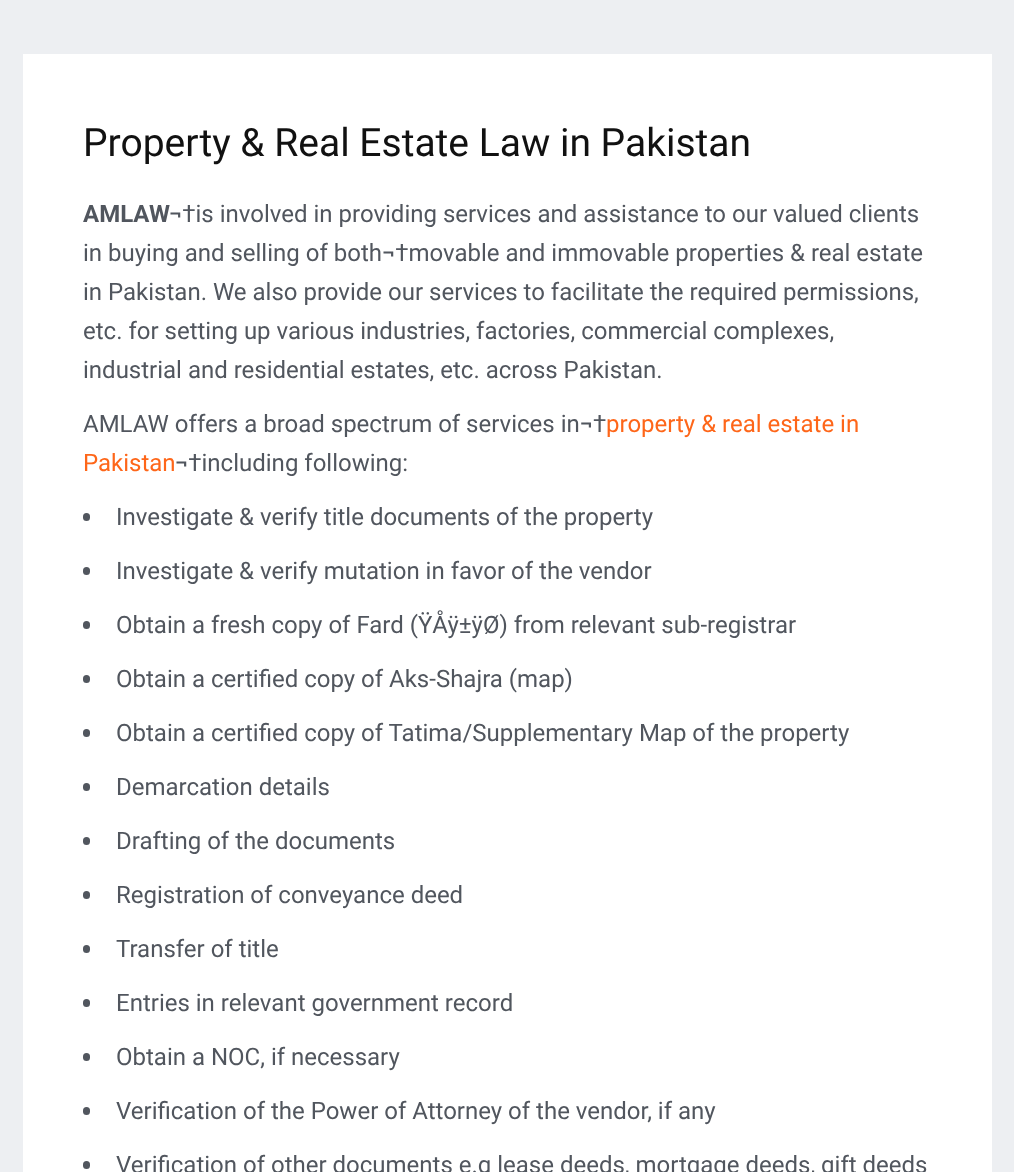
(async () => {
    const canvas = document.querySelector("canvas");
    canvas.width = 1014;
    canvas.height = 1172;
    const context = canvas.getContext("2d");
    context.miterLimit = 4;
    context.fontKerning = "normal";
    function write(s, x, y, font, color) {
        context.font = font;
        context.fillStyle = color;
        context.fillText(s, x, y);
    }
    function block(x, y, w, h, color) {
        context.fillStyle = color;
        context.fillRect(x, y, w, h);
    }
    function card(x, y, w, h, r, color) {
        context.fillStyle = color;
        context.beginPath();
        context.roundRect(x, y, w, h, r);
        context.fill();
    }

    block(0, 0, 1014, 1172, "rgb(237, 239, 242)");
    block(23, 54, 969, 1118, "rgb(255, 255, 255)");
    write("Property & Real Estate Law in Pakistan", 83, 156, "39px Roboto", "rgb(17, 17, 17)");
    write("AMLAW", 83, 222, "bold 24px Roboto", "rgb(81, 86, 94)");
    write("¬†is involved in providing services and assistance to our valued clients", 169, 222, "24px Roboto", "rgb(81, 86, 94)");
    write("in buying and selling of both¬†movable and immovable properties & real estate", 83, 261, "24px Roboto", "rgb(81, 86, 94)");
    write("in Pakistan. We also provide our services to facilitate the required permissions,", 83, 300, "24px Roboto", "rgb(81, 86, 94)");
    write("etc. for setting up various industries, factories, commercial complexes,", 83, 339, "24px Roboto", "rgb(81, 86, 94)");
    write("industrial and residential estates, etc. across Pakistan.", 83, 378, "24px Roboto", "rgb(81, 86, 94)");
    write("AMLAW offers a broad spectrum of services in¬†", 83, 432, "24px Roboto", "rgb(81, 86, 94)");
    write("property & real estate in", 606, 432, "24px Roboto", "rgb(254, 102, 25)");
    write("Pakistan", 83, 471, "24px Roboto", "rgb(254, 102, 25)");
    write("¬†including following:", 175, 471, "24px Roboto", "rgb(81, 86, 94)");
    card(83, 513, 7, 8, 3.5, "rgb(81, 86, 94)");
    write("Investigate & verify title documents of the property", 116, 525, "24px Roboto", "rgb(81, 86, 94)");
    card(83, 567, 7, 8, 3.5, "rgb(81, 86, 94)");
    write("Investigate & verify mutation in favor of the vendor", 116, 579, "24px Roboto", "rgb(81, 86, 94)");
    card(83, 621, 7, 8, 3.5, "rgb(81, 86, 94)");
    write("Obtain a fresh copy of Fard (ŸÅÿ±ÿØ) from relevant sub-registrar", 116, 633, "24px Roboto", "rgb(81, 86, 94)");
    card(83, 675, 7, 8, 3.5, "rgb(81, 86, 94)");
    write("Obtain a certified copy of Aks-Shajra (map)", 116, 687, "24px Roboto", "rgb(81, 86, 94)");
    card(83, 729, 7, 8, 3.5, "rgb(81, 86, 94)");
    write("Obtain a certified copy of Tatima/Supplementary Map of the property", 116, 741, "24px Roboto", "rgb(81, 86, 94)");
    card(83, 783, 7, 8, 3.5, "rgb(81, 86, 94)");
    write("Demarcation details", 116, 795, "24px Roboto", "rgb(81, 86, 94)");
    card(83, 837, 7, 8, 3.5, "rgb(81, 86, 94)");
    write("Drafting of the documents", 116, 849, "24px Roboto", "rgb(81, 86, 94)");
    card(83, 891, 7, 8, 3.5, "rgb(81, 86, 94)");
    write("Registration of conveyance deed", 116, 903, "24px Roboto", "rgb(81, 86, 94)");
    card(83, 945, 7, 8, 3.5, "rgb(81, 86, 94)");
    write("Transfer of title", 116, 957, "24px Roboto", "rgb(81, 86, 94)");
    card(83, 999, 7, 8, 3.5, "rgb(81, 86, 94)");
    write("Entries in relevant government record", 116, 1011, "24px Roboto", "rgb(81, 86, 94)");
    card(83, 1053, 7, 8, 3.5, "rgb(81, 86, 94)");
    write("Obtain a NOC, if necessary", 116, 1065, "24px Roboto", "rgb(81, 86, 94)");
    card(83, 1107, 7, 8, 3.5, "rgb(81, 86, 94)");
    write("Verification of the Power of Attorney of the vendor, if any", 116, 1119, "24px Roboto", "rgb(81, 86, 94)");
    card(83, 1161, 7, 8, 3.5, "rgb(81, 86, 94)");
    write("Verification of other documents e.g lease deeds, mortgage deeds, gift deeds", 116, 1173, "24px Roboto", "rgb(81, 86, 94)");
})();
